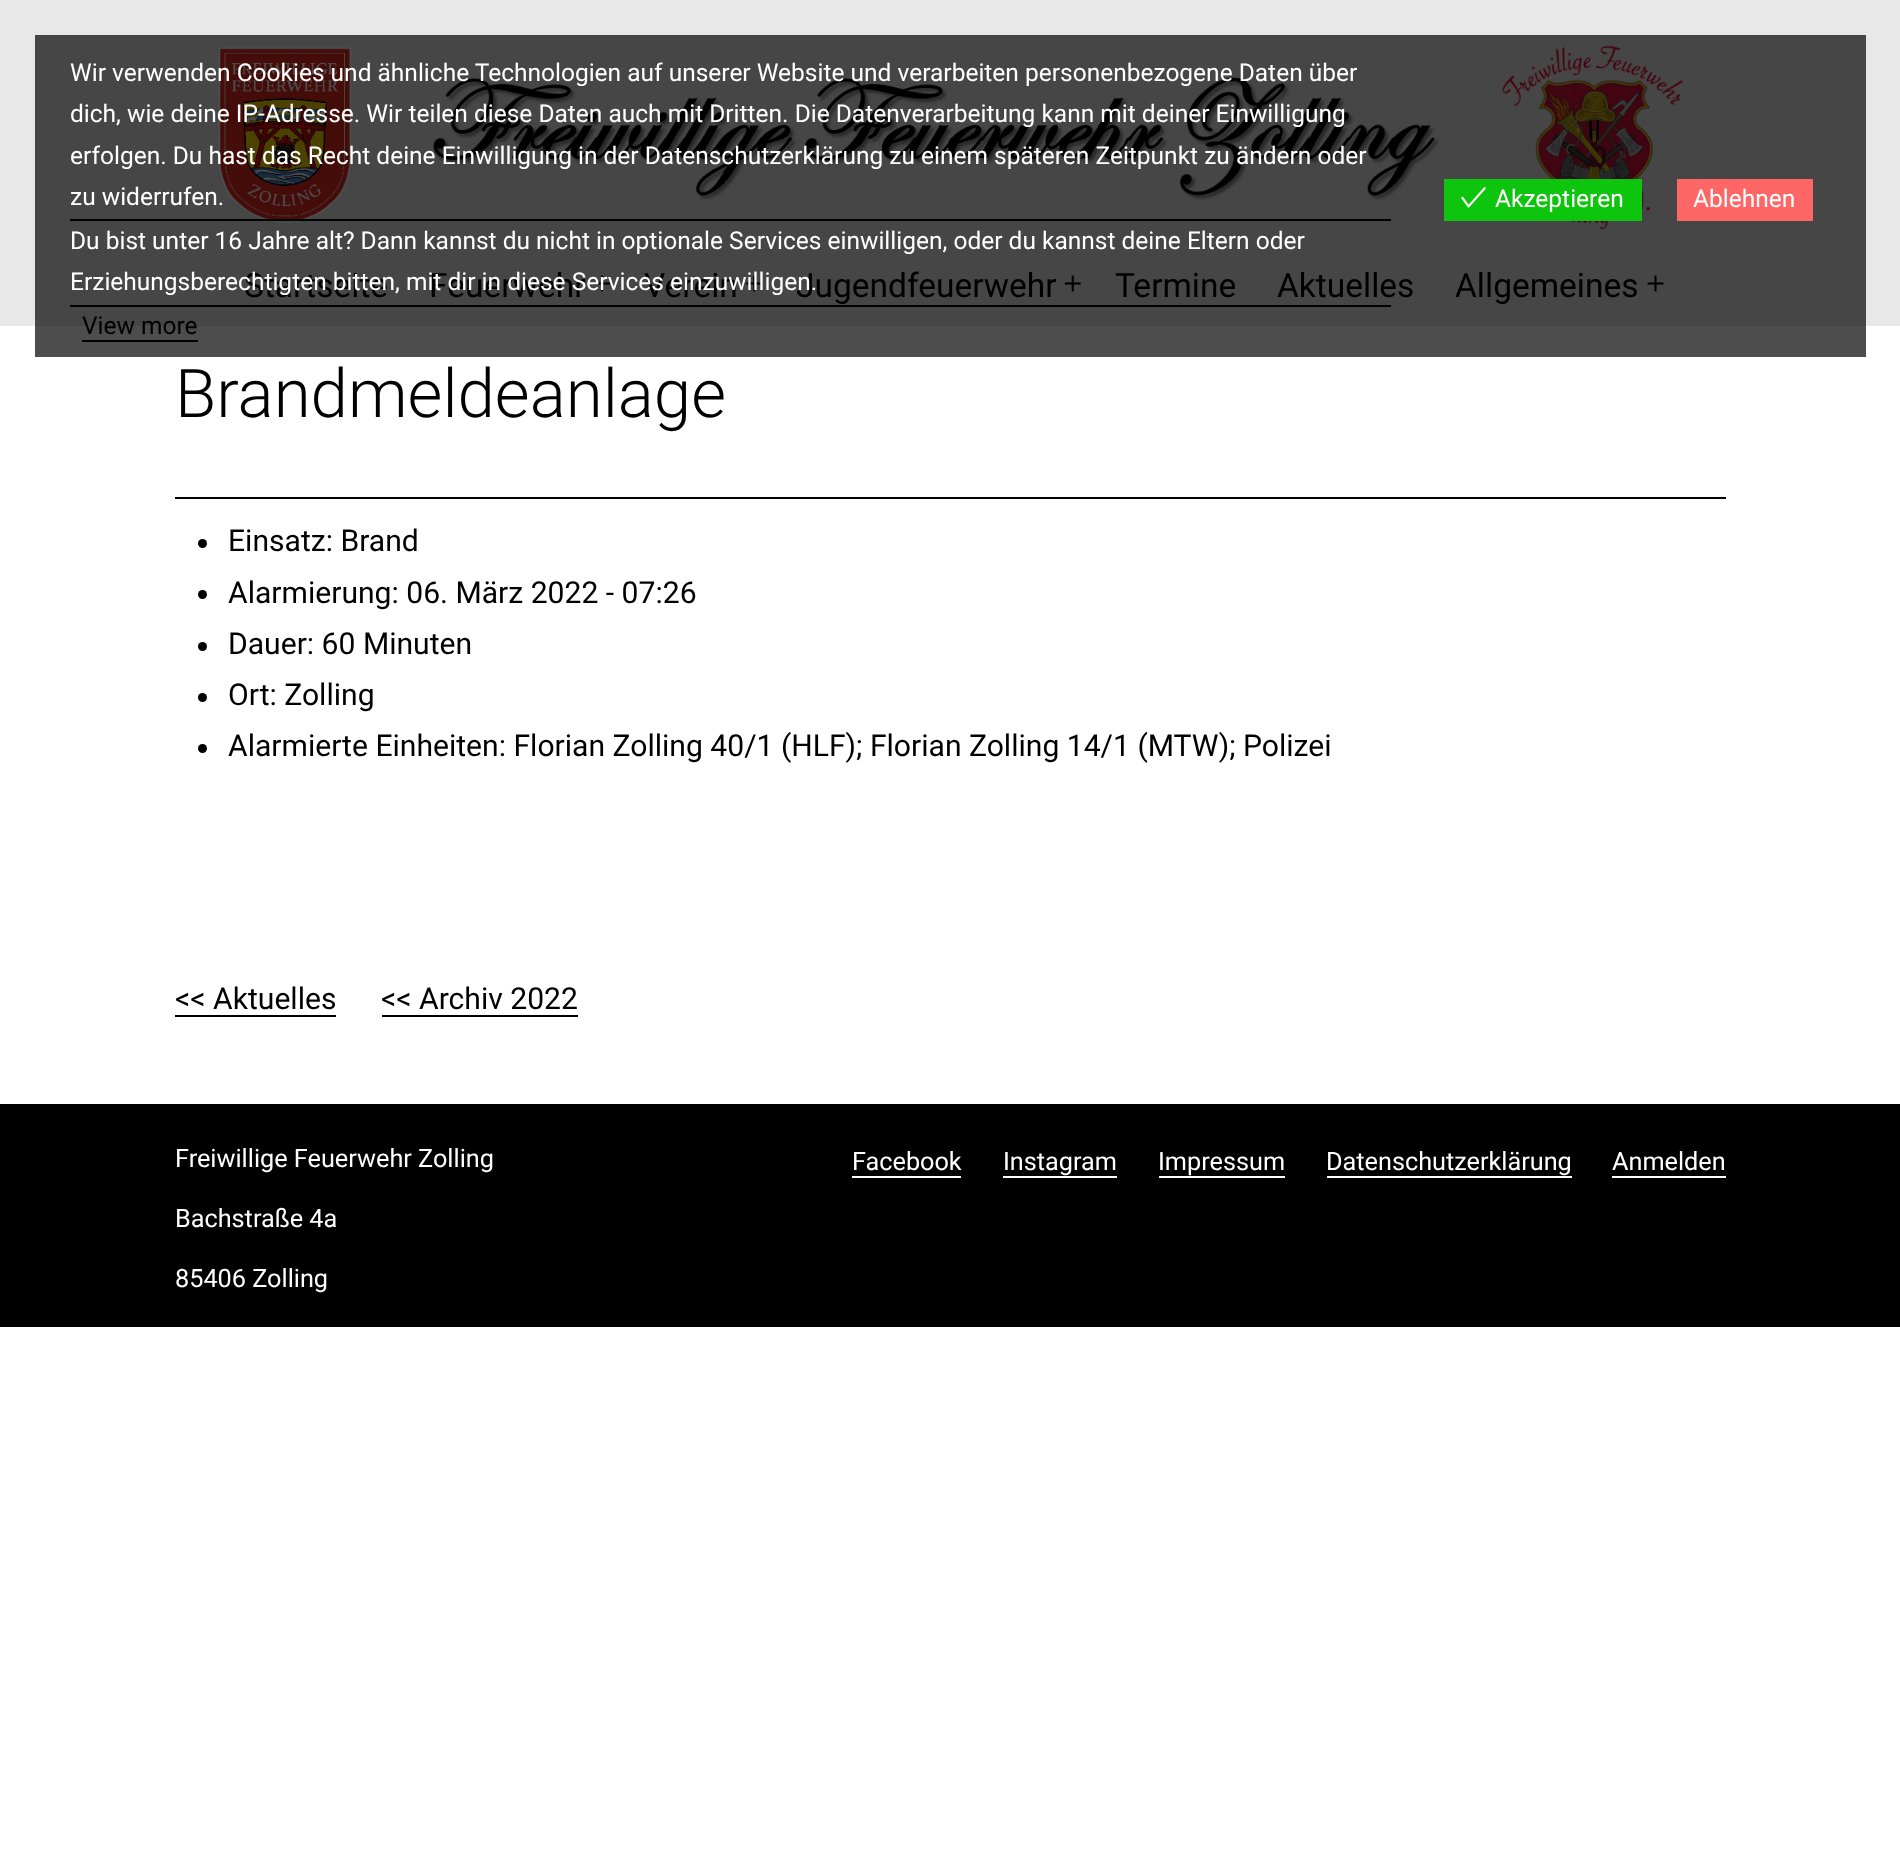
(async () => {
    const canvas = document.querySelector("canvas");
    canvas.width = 1900;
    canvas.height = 1856;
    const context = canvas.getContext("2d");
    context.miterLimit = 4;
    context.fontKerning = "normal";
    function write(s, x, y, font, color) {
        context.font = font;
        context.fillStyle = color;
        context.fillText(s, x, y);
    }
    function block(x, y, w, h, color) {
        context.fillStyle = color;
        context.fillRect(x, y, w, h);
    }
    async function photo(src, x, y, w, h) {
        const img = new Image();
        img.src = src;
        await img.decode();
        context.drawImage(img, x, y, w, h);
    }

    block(0, 0, 1900, 1856, "rgb(255, 255, 255)");
    block(35, 326, 1831, 31, "rgb(77, 77, 77)");
    block(0, 0, 1900, 326, "rgb(232, 232, 232)");
    block(35, 35, 1831, 291, "rgb(70, 70, 70)");
    await photo("media/2.png", 218, 45, 1466, 185);
    write("Wir verwenden Cookies und ähnliche Technologien auf unserer Website und verarbeiten personenbezogene Daten über", 70, 81, "24.5px Roboto", "rgb(255, 255, 255)");
    write("dich, wie deine IP-Adresse. Wir teilen diese Daten auch mit Dritten. Die Datenverarbeitung kann mit deiner Einwilligung", 70, 122, "24.5px Roboto", "rgb(255, 255, 255)");
    write("erfolgen. Du hast das Recht deine Einwilligung in der Datenschutzerklärung zu einem späteren Zeitpunkt zu ändern oder", 70, 164, "24.5px Roboto", "rgb(255, 255, 255)");
    write("zu widerrufen.", 70, 205, "24.5px Roboto", "rgb(255, 255, 255)");
    block(70, 219, 1321, 2, "rgb(0, 0, 0)");
    write("Du bist unter 16 Jahre alt? Dann kannst du nicht in optionale Services einwilligen, oder du kannst deine Eltern oder", 70, 249, "24.5px Roboto", "rgb(255, 255, 255)");
    write("Startseite", 244, 297, "33.5px Roboto", "rgb(0, 0, 0)");
    write("Feuerwehr", 429, 297, "33.5px Roboto", "rgb(0, 0, 0)");
    await photo("media/3.png", 594, 275, 16, 17);
    write("Verein", 644, 297, "33.5px Roboto", "rgb(0, 0, 0)");
    await photo("media/4.png", 746, 275, 17, 17);
    write("Jugendfeuerwehr", 796, 297, "33.5px Roboto", "rgb(0, 0, 0)");
    write("Erziehungsberechtigten bitten, mit dir in diese Services einzuwilligen.", 70, 290, "24.5px Roboto", "rgb(255, 255, 255)");
    block(70, 305, 1321, 2, "rgb(0, 0, 0)");
    write("View more", 82, 334, "24.5px Roboto", "rgb(0, 0, 0)");
    block(82, 340, 116, 2, "rgb(0, 0, 0)");
    block(1444, 179, 198, 42, "rgb(14, 197, 14)");
    await photo("media/1.png", 1461, 187, 25, 21);
    write("Akzeptieren", 1495, 207, "24.5px Roboto", "rgb(255, 255, 255)");
    block(1677, 179, 136, 42, "rgb(255, 102, 102)");
    write("Ablehnen", 1693, 207, "24.5px Roboto", "rgb(255, 255, 255)");
    await photo("media/5.png", 1064, 275, 17, 17);
    write("Termine", 1115, 297, "33.5px Roboto", "rgb(0, 0, 0)");
    write("Aktuelles", 1277, 297, "33.5px Roboto", "rgb(0, 0, 0)");
    write("Allgemeines", 1455, 297, "33.5px Roboto", "rgb(0, 0, 0)");
    await photo("media/6.png", 1647, 275, 17, 17);
    block(175, 497, 1551, 2, "rgb(0, 0, 0)");
    write("Brandmeldeanlage", 175, 417, "300 67.25px Roboto", "rgb(0, 0, 0)");
    context.beginPath();
    context.arc(202.5, 543.5, 4.5, 0, Math.PI * 2);
    context.fill();
    write("Einsatz: Brand", 228, 551, "30.1px Roboto", "rgb(0, 0, 0)");
    context.beginPath();
    context.arc(202.5, 594.5, 4.5, 0, Math.PI * 2);
    context.fill();
    write("Alarmierung: 06. März 2022 - 07:26", 228, 603, "30.1px Roboto", "rgb(0, 0, 0)");
    context.beginPath();
    context.arc(202.5, 646.5, 4.5, 0, Math.PI * 2);
    context.fill();
    write("Dauer: 60 Minuten", 228, 654, "30.1px Roboto", "rgb(0, 0, 0)");
    context.beginPath();
    context.arc(202.5, 697.5, 4.5, 0, Math.PI * 2);
    context.fill();
    write("Ort: Zolling", 228, 705, "30.1px Roboto", "rgb(0, 0, 0)");
    context.beginPath();
    context.arc(202.5, 748.5, 4.5, 0, Math.PI * 2);
    context.fill();
    write("Alarmierte Einheiten: Florian Zolling 40/1 (HLF); Florian Zolling 14/1 (MTW); Polizei", 228, 756, "30.1px Roboto", "rgb(0, 0, 0)");
    write("<< Aktuelles", 175, 1009, "30.1px Roboto", "rgb(0, 0, 0)");
    block(175, 1015, 161, 2, "rgb(0, 0, 0)");
    write("<< Archiv 2022", 381, 1009, "30.1px Roboto", "rgb(0, 0, 0)");
    block(382, 1015, 196, 2, "rgb(0, 0, 0)");
    block(0, 1104, 1900, 223, "rgb(0, 0, 0)");
    write("Freiwillige Feuerwehr Zolling", 175, 1167, "25.25px Roboto", "rgb(255, 255, 255)");
    write("Bachstraße 4a", 175, 1227, "25.25px Roboto", "rgb(255, 255, 255)");
    write("85406 Zolling", 175, 1287, "25.25px Roboto", "rgb(255, 255, 255)");
    write("Facebook", 852, 1170, "25.25px Roboto", "rgb(255, 255, 255)");
    block(852, 1176, 109, 2, "rgb(255, 255, 255)");
    write("Instagram", 1003, 1170, "25.25px Roboto", "rgb(255, 255, 255)");
    block(1003, 1176, 114, 2, "rgb(255, 255, 255)");
    write("Impressum", 1158, 1170, "25.25px Roboto", "rgb(255, 255, 255)");
    block(1159, 1176, 126, 2, "rgb(255, 255, 255)");
    write("Datenschutzerklärung", 1326, 1170, "25.25px Roboto", "rgb(255, 255, 255)");
    block(1327, 1176, 245, 2, "rgb(255, 255, 255)");
    write("Anmelden", 1612, 1170, "25.25px Roboto", "rgb(255, 255, 255)");
    block(1612, 1176, 114, 2, "rgb(255, 255, 255)");
})();
